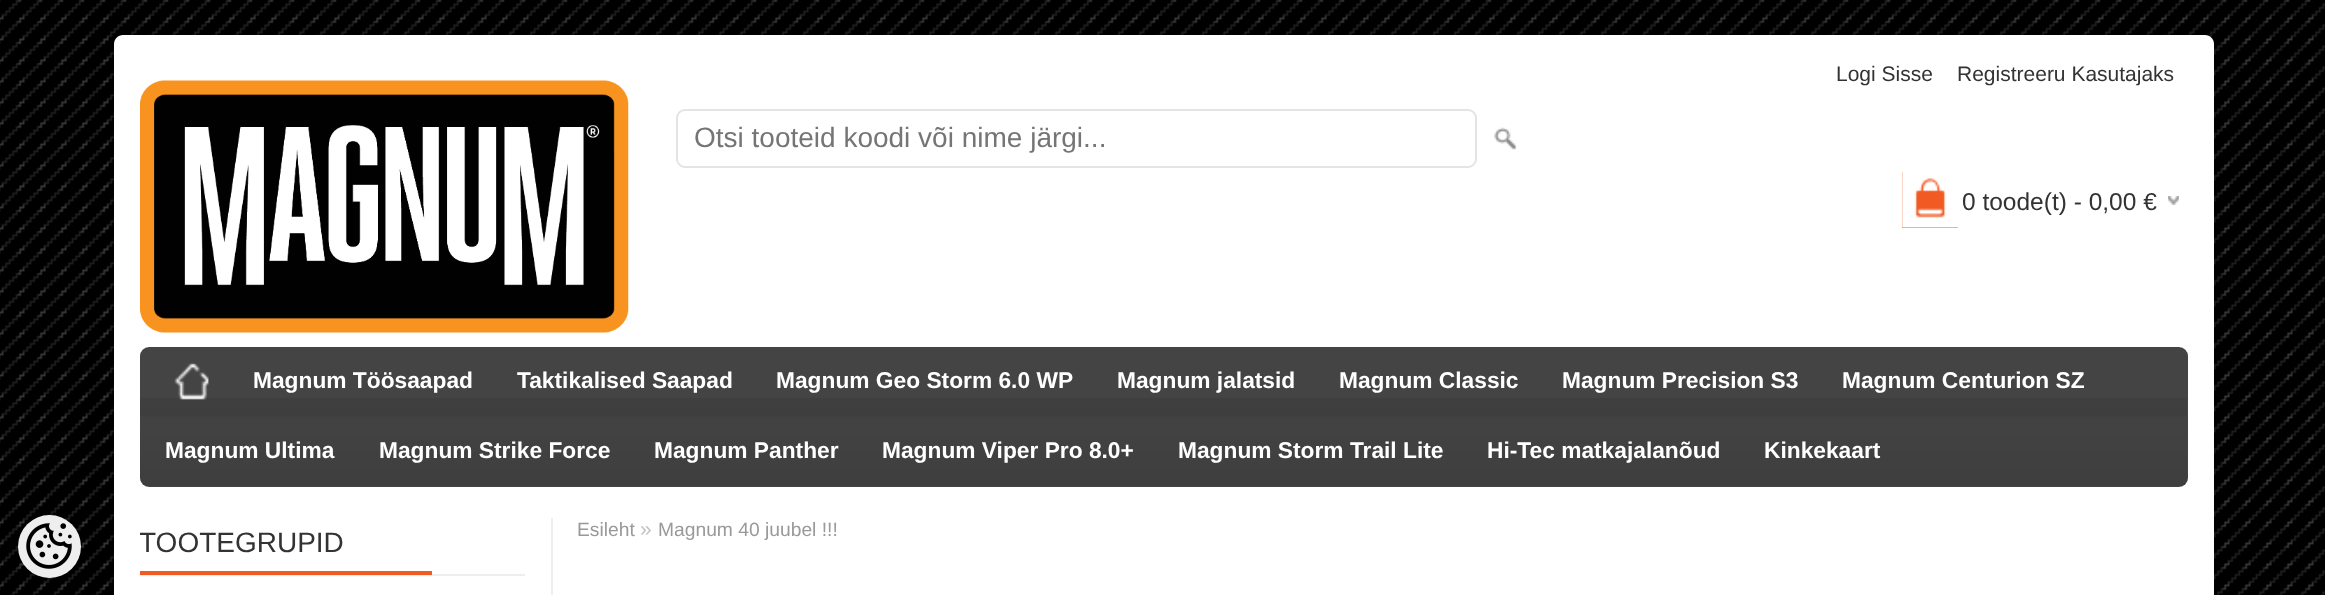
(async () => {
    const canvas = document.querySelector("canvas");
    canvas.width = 2325;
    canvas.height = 595;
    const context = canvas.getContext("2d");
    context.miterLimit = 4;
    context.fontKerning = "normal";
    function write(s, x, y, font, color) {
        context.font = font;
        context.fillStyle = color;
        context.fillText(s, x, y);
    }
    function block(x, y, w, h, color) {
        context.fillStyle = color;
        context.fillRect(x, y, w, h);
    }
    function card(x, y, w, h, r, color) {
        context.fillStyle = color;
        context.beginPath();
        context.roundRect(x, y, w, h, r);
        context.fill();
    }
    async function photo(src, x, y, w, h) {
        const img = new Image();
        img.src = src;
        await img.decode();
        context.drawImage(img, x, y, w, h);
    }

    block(0, 0, 2325, 595, "rgb(255, 255, 255)");
    await photo("media/1.png", 0, 0, 2325, 595);
    context.fillStyle = "rgb(238, 238, 238)";
    context.beginPath();
    context.arc(49.5, 546.5, 31.5, 0, Math.PI * 2);
    context.fill();
    await photo("media/2.png", 26, 523, 46, 46);
    context.fillStyle = "rgb(255, 255, 255)";
    context.beginPath();
    context.moveTo(123, 35);
    context.lineTo(2205, 35);
    context.bezierCurveTo(2210, 35, 2214, 39, 2214, 44);
    context.lineTo(2214, 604);
    context.lineTo(114, 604);
    context.lineTo(114, 44);
    context.bezierCurveTo(114, 39, 118, 35, 123, 35);
    context.closePath();
    context.fill();
    write("Logi Sisse", 1836, 81, "21px Liberation Sans", "rgb(51, 51, 51)");
    write("Registreeru Kasutajaks", 1957, 81, "21px Liberation Sans", "rgb(51, 51, 51)");
    await photo("media/3.png", 140, 80, 489, 253);
    context.beginPath();
    context.roundRect(677, 110, 799, 57, 8);
    context.strokeStyle = "rgb(228, 228, 228)";
    context.lineWidth = 2;
    context.stroke();
    write("Otsi tooteid koodi või nime järgi...", 694, 147, "28px Liberation Sans", "rgb(117, 117, 117)");
    await photo("media/4.png", 1494, 127, 23, 23);
    block(1902, 172, 56, 56, "rgb(241, 90, 35)");
    await photo("media/5.png", 1902, 172, 56, 56);
    await photo("media/6.png", 2168, 196, 11, 9);
    write("0 toode(t) - 0,00 €", 1962, 210, "24.5px Liberation Sans", "rgb(51, 51, 51)");
    card(140, 347, 2048, 140, 9, "rgb(68, 68, 68)");
    await photo("media/7.png", 140, 398, 2047, 88);
    await photo("media/8.png", 174, 363, 35, 37);
    write("Magnum Töösaapad", 253, 388, "bold 22.75px Liberation Sans", "rgb(255, 255, 255)");
    write("Taktikalised Saapad", 517, 388, "bold 22.75px Liberation Sans", "rgb(255, 255, 255)");
    write("Magnum Geo Storm 6.0 WP", 776, 388, "bold 22.75px Liberation Sans", "rgb(255, 255, 255)");
    write("Magnum jalatsid", 1117, 388, "bold 22.75px Liberation Sans", "rgb(255, 255, 255)");
    write("Magnum Classic", 1339, 388, "bold 22.75px Liberation Sans", "rgb(255, 255, 255)");
    write("Magnum Precision S3", 1562, 388, "bold 22.75px Liberation Sans", "rgb(255, 255, 255)");
    write("Magnum Centurion SZ", 1842, 388, "bold 22.75px Liberation Sans", "rgb(255, 255, 255)");
    write("Magnum Ultima", 165, 458, "bold 22.75px Liberation Sans", "rgb(255, 255, 255)");
    write("Magnum Strike Force", 379, 458, "bold 22.75px Liberation Sans", "rgb(255, 255, 255)");
    write("Magnum Panther", 654, 458, "bold 22.75px Liberation Sans", "rgb(255, 255, 255)");
    write("Magnum Viper Pro 8.0+", 882, 458, "bold 22.75px Liberation Sans", "rgb(255, 255, 255)");
    write("Magnum Storm Trail Lite", 1178, 458, "bold 22.75px Liberation Sans", "rgb(255, 255, 255)");
    write("Hi-Tec matkajalanõud", 1487, 458, "bold 22.75px Liberation Sans", "rgb(255, 255, 255)");
    write("Kinkekaart", 1764, 458, "bold 22.75px Liberation Sans", "rgb(255, 255, 255)");
    block(551, 518, 2, 77, "rgb(238, 238, 238)");
    block(140, 574, 385, 2, "rgb(238, 238, 238)");
    block(140, 571, 292, 4, "rgb(241, 90, 35)");
    context.save();
    context.beginPath();
    context.rect(140, 518, 2048, 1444);
    context.clip();
    write("TOOTEGRUPID", 139, 552, "28px Liberation Sans", "rgb(51, 51, 51)");
    context.restore();
    write("Esileht", 577, 536, "19.25px Liberation Sans", "rgb(153, 153, 153)");
    write("»", 640, 536, "21px Liberation Sans", "rgb(194, 194, 194)");
    write("Magnum 40 juubel !!!", 658, 536, "19.25px Liberation Sans", "rgb(153, 153, 153)");
})();
